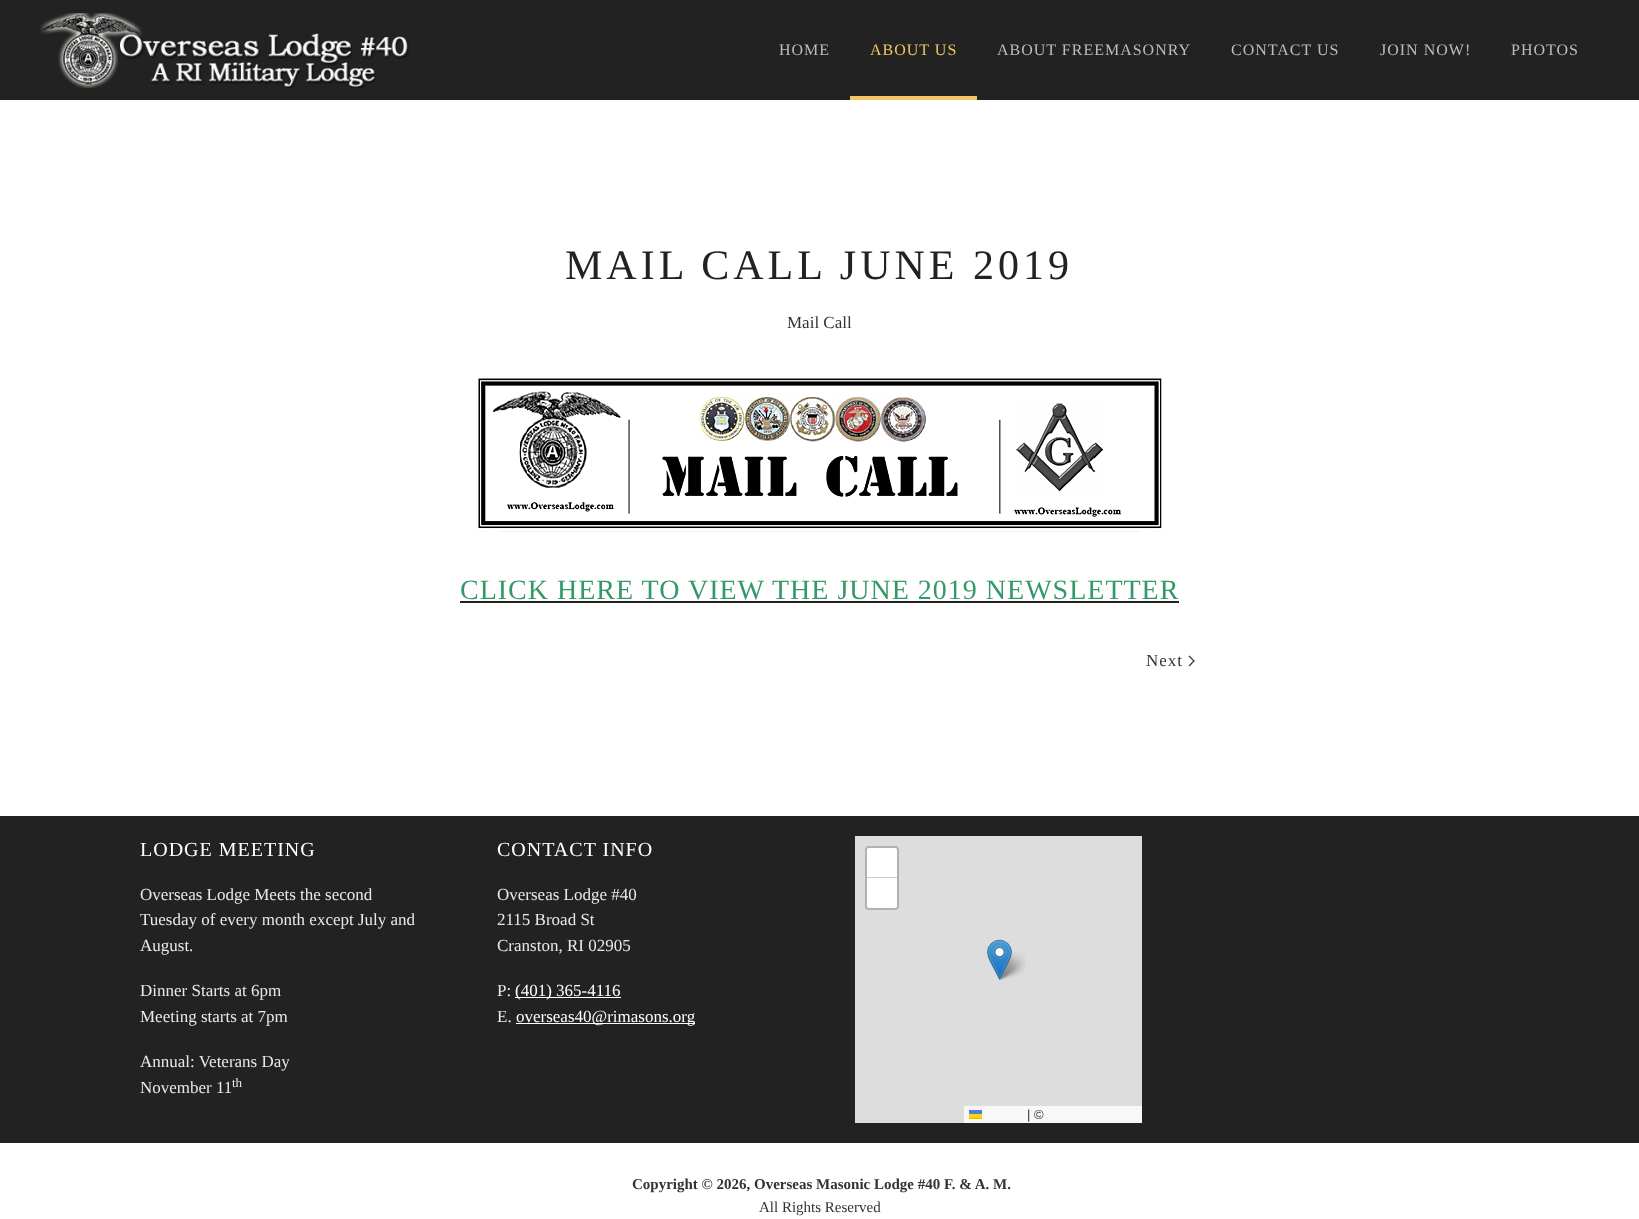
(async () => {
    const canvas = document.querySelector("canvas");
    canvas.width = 1639;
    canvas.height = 1219;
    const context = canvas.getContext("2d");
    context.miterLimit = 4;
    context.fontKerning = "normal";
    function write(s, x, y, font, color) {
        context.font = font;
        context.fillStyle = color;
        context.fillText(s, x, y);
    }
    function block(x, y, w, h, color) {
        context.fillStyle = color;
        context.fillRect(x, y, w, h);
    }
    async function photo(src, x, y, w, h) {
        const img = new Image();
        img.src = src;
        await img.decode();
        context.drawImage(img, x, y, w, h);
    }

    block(0, 0, 1639, 1219, "rgb(255, 255, 255)");
    block(0, 0, 1639, 100, "rgb(34, 34, 34)");
    await photo("media/1.png", 40, 13, 369, 75);
    context.letterSpacing = "1px";
    write("HOME", 779, 55, "16px Liberation Serif", "rgb(189, 189, 189)");
    write("ABOUT US", 870, 55, "16px Liberation Serif", "rgb(243, 197, 101)");
    block(850, 96, 127, 4, "rgb(243, 197, 101)");
    write("ABOUT FREEMASONRY", 997, 55, "16px Liberation Serif", "rgb(189, 189, 189)");
    write("CONTACT US", 1231, 55, "16px Liberation Serif", "rgb(189, 189, 189)");
    write("JOIN NOW!", 1380, 55, "16px Liberation Serif", "rgb(189, 189, 189)");
    write("PHOTOS", 1511, 55, "16px Liberation Serif", "rgb(189, 189, 189)");
    context.letterSpacing = "4px";
    write("MAIL CALL JUNE 2019", 565, 279, "42px Liberation Serif", "rgb(34, 34, 34)");
    context.letterSpacing = "0px";
    write("Mail Call", 787, 328, "17px Liberation Serif", "rgb(51, 51, 51)");
    await photo("media/2.png", 478, 376, 684, 156);
    context.letterSpacing = "1px";
    write("CLICK HERE TO VIEW THE JUNE 2019 NEWSLETTER", 460, 599, "28px Liberation Serif", "rgb(51, 153, 102)");
    block(460, 601, 719, 2, "rgb(34, 34, 34)");
    write("Next", 1146, 666, "17px Liberation Serif", "rgb(51, 51, 51)");
    context.beginPath();
    context.moveTo(1189, 656);
    context.lineTo(1194, 661);
    context.lineTo(1189, 666);
    context.strokeStyle = "rgb(51, 51, 51)";
    context.lineWidth = 1.2;
    context.stroke();
    block(0, 816, 1639, 327, "rgb(34, 34, 34)");
    write("LODGE MEETING", 140, 856, "20px Liberation Serif", "rgb(255, 255, 255)");
    context.letterSpacing = "0px";
    write("Overseas Lodge Meets the second", 140, 900, "17px Liberation Serif", "rgb(233, 233, 233)");
    write("Tuesday of every month except July and", 140, 925, "17px Liberation Serif", "rgb(233, 233, 233)");
    write("August.", 140, 951, "17px Liberation Serif", "rgb(233, 233, 233)");
    write("Dinner Starts at 6pm", 140, 996, "17px Liberation Serif", "rgb(233, 233, 233)");
    write("Meeting starts at 7pm", 140, 1022, "17px Liberation Serif", "rgb(233, 233, 233)");
    write("Annual: Veterans Day", 140, 1067, "17px Liberation Serif", "rgb(233, 233, 233)");
    write("November 11", 140, 1093, "17px Liberation Serif", "rgb(233, 233, 233)");
    write("th", 232, 1087, "13px Liberation Serif", "rgb(233, 233, 233)");
    context.letterSpacing = "1px";
    write("CONTACT INFO", 497, 856, "20px Liberation Serif", "rgb(255, 255, 255)");
    context.letterSpacing = "0px";
    write("Overseas Lodge #40", 497, 900, "17px Liberation Serif", "rgb(233, 233, 233)");
    write("2115 Broad St", 497, 925, "17px Liberation Serif", "rgb(233, 233, 233)");
    write("Cranston, RI 02905", 497, 951, "17px Liberation Serif", "rgb(233, 233, 233)");
    write("P:", 497, 996, "17px Liberation Serif", "rgb(233, 233, 233)");
    block(515, 997, 106, 1, "rgb(255, 255, 255)");
    write("(401) 365-4116", 515, 996, "17px Liberation Serif", "rgb(255, 255, 255)");
    write("E.", 497, 1022, "17px Liberation Serif", "rgb(233, 233, 233)");
    block(516, 1023, 179, 1, "rgb(255, 255, 255)");
    write("overseas40@rimasons.org", 516, 1022, "17px Liberation Serif", "rgb(255, 255, 255)");
    block(855, 836, 287, 287, "rgb(221, 221, 221)");
    await photo("media/4.png", 997, 952, 29, 28);
    await photo("media/3.png", 987, 939, 25, 41);
    context.beginPath();
    context.roundRect(866, 847, 32, 62, 3);
    context.strokeStyle = "rgb(177, 177, 177)";
    context.lineWidth = 2;
    context.stroke();
    context.fillStyle = "rgb(255, 255, 255)";
    context.beginPath();
    context.roundRect(867, 848, 30, 30, [2, 2, 0, 0]);
    context.fill();
    block(867, 877, 30, 1, "rgb(204, 204, 204)");
    context.fillStyle = "rgb(255, 255, 255)";
    context.beginPath();
    context.roundRect(867, 878, 30, 30, [0, 0, 2, 2]);
    context.fill();
    block(964, 1106, 178, 17, "rgb(248, 248, 248)");
    block(969, 1110, 13, 4, "rgb(76, 123, 225)");
    write("| ©", 1027, 1119, "13px Liberation Sans", "rgb(51, 51, 51)");
    block(969, 1114, 13, 4, "rgb(255, 213, 0)");
    block(969, 1118, 13, 1, "rgb(224, 188, 0)");
    write("Copyright © 2026, Overseas Masonic Lodge #40 F. & A. M.", 632, 1189, "bold 15px Liberation Serif", "rgb(51, 51, 51)");
    write("All Rights Reserved", 759, 1212, "15px Liberation Serif", "rgb(51, 51, 51)");
})();
